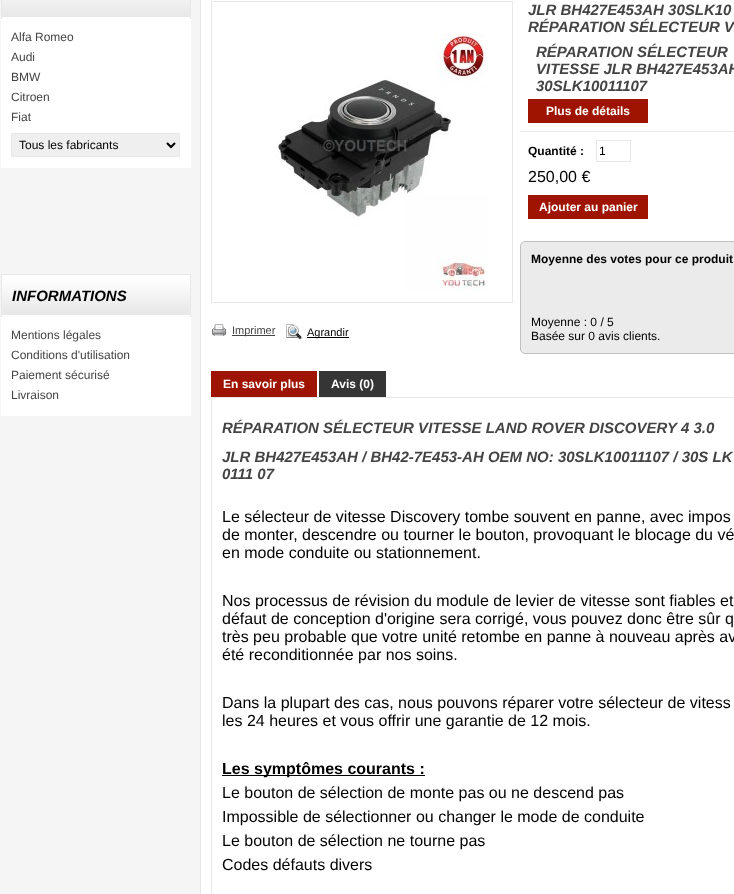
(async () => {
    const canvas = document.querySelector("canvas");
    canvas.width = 734;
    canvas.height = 894;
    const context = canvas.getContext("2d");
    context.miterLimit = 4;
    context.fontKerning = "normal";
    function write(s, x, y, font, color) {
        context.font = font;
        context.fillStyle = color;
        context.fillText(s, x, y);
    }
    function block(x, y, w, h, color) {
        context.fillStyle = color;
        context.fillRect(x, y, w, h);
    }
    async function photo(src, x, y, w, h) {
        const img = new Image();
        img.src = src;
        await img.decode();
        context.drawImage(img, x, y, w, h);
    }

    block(0, 0, 734, 894, "rgb(245, 245, 245)");
    block(1, 19, 190, 149, "rgb(255, 255, 255)");
    await photo("media/1.png", 1, 0, 190, 19);
    write("Alfa Romeo", 11, 41, "12px Liberation Sans", "rgb(68, 68, 68)");
    write("Audi", 11, 61, "12px Liberation Sans", "rgb(68, 68, 68)");
    write("BMW", 11, 81, "12px Liberation Sans", "rgb(68, 68, 68)");
    write("Citroen", 11, 101, "12px Liberation Sans", "rgb(68, 68, 68)");
    write("Fiat", 11, 121, "12px Liberation Sans", "rgb(68, 68, 68)");
    context.fillStyle = "rgb(239, 239, 239)";
    context.beginPath();
    context.rect(11.5, 133.5, 168, 23);
    context.fill();
    context.strokeStyle = "rgb(232, 232, 232)";
    context.stroke();
    context.beginPath();
    context.moveTo(167, 143);
    context.lineTo(171, 147);
    context.lineTo(175, 143);
    context.strokeStyle = "rgb(0, 0, 0)";
    context.lineWidth = 2;
    context.stroke();
    write("Tous les fabricants", 19, 149, "12px Liberation Sans", "rgb(0, 0, 0)");
    block(1, 317, 190, 99, "rgb(255, 255, 255)");
    await photo("media/2.png", 1, 274, 190, 43);
    write("INFORMATIONS", 12, 301, "italic bold 15px Liberation Sans", "rgb(0, 0, 0)");
    write("Mentions légales", 11, 339, "12px Liberation Sans", "rgb(68, 68, 68)");
    write("Conditions d'utilisation", 11, 359, "12px Liberation Sans", "rgb(68, 68, 68)");
    write("Paiement sécurisé", 11, 379, "12px Liberation Sans", "rgb(68, 68, 68)");
    write("Livraison", 11, 399, "12px Liberation Sans", "rgb(68, 68, 68)");
    context.fillStyle = "rgb(255, 255, 255)";
    context.beginPath();
    context.rect(200.5, -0.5, 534, 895);
    context.fill();
    context.strokeStyle = "rgb(232, 232, 232)";
    context.lineWidth = 1;
    context.stroke();
    context.strokeRect(211.5, 1.5, 301, 301);
    await photo("media/3.png", 276, 34, 212, 256);
    await photo("media/4.png", 212, 324, 14, 12);
    block(232, 335, 43, 1, "rgb(68, 68, 68)");
    write("Imprimer", 232, 334, "11px Liberation Sans", "rgb(68, 68, 68)");
    await photo("media/5.png", 286, 324, 16, 16);
    block(307, 337, 42, 1, "rgb(0, 0, 0)");
    write("Agrandir", 307, 336, "11px Liberation Sans", "rgb(0, 0, 0)");
    write("JLR BH427E453AH 30SLK10", 528, 15, "italic bold 15px Liberation Sans", "rgb(68, 68, 68)");
    write("RÉPARATION SÉLECTEUR V", 528, 32, "italic bold 15px Liberation Sans", "rgb(68, 68, 68)");
    block(520, 131, 214, 1, "rgb(232, 232, 232)");
    write("RÉPARATION SÉLECTEUR", 536, 57, "italic bold 15px Liberation Sans", "rgb(68, 68, 68)");
    write("VITESSE JLR BH427E453AH", 536, 74, "italic bold 15px Liberation Sans", "rgb(68, 68, 68)");
    write("30SLK10011107", 536, 91, "italic bold 15px Liberation Sans", "rgb(68, 68, 68)");
    block(528, 99, 120, 24, "rgb(158, 20, 0)");
    write("Plus de détails", 546, 115, "bold 12px Liberation Sans", "rgb(255, 255, 255)");
    write("Quantité :", 528, 155, "bold 12px Liberation Sans", "rgb(0, 0, 0)");
    context.strokeRect(596.5, 140.5, 34, 21);
    write("1", 599, 155, "12px Liberation Sans", "rgb(0, 0, 0)");
    write("250,00 €", 528, 182, "16px Liberation Sans", "rgb(0, 0, 0)");
    block(528, 195, 120, 24, "rgb(158, 20, 0)");
    write("Ajouter au panier", 539, 211, "bold 12px Liberation Sans", "rgb(255, 255, 255)");
    context.fillStyle = "rgb(235, 235, 235)";
    context.beginPath();
    context.roundRect(520.5, 241.5, 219, 112, 4.5);
    context.fill();
    context.strokeStyle = "rgb(192, 192, 192)";
    context.stroke();
    write("Moyenne des votes pour ce produit", 531, 263, "bold 12px Liberation Sans", "rgb(0, 0, 0)");
    write("Moyenne : 0 / 5", 531, 326, "12px Liberation Sans", "rgb(0, 0, 0)");
    write("Basée sur 0 avis clients.", 531, 340, "12px Liberation Sans", "rgb(0, 0, 0)");
    block(211, 371, 106, 26, "rgb(158, 20, 0)");
    write("En savoir plus", 223, 388, "bold 12px Liberation Sans", "rgb(255, 255, 255)");
    block(319, 371, 67, 26, "rgb(53, 53, 53)");
    write("Avis (0)", 331, 388, "bold 12px Liberation Sans", "rgb(255, 255, 255)");
    context.strokeStyle = "rgb(232, 232, 232)";
    context.strokeRect(211.5, 397.5, 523, 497);
    write("RÉPARATION SÉLECTEUR VITESSE LAND ROVER DISCOVERY 4 3.0", 222, 433, "italic bold 15px Liberation Sans", "rgb(68, 68, 68)");
    write("JLR BH427E453AH / BH42-7E453-AH OEM NO: 30SLK10011107 / 30S LK", 222, 462, "italic bold 15px Liberation Sans", "rgb(68, 68, 68)");
    write("0111 07", 222, 479, "italic bold 15px Liberation Sans", "rgb(68, 68, 68)");
    write("Le sélecteur de vitesse Discovery tombe souvent en panne, avec impos", 222, 522, "16px Liberation Sans", "rgb(0, 0, 0)");
    write("de monter, descendre ou tourner le bouton, provoquant le blocage du vé", 222, 540, "16px Liberation Sans", "rgb(0, 0, 0)");
    write("en mode conduite ou stationnement.", 222, 558, "16px Liberation Sans", "rgb(0, 0, 0)");
    write("Nos processus de révision du module de levier de vitesse sont fiables et", 222, 606, "16px Liberation Sans", "rgb(0, 0, 0)");
    write("défaut de conception d'origine sera corrigé, vous pouvez donc être sûr q", 222, 624, "16px Liberation Sans", "rgb(0, 0, 0)");
    write("très peu probable que votre unité retombe en panne à nouveau après av", 222, 642, "16px Liberation Sans", "rgb(0, 0, 0)");
    write("été reconditionnée par nos soins.", 222, 660, "16px Liberation Sans", "rgb(0, 0, 0)");
    write("Dans la plupart des cas, nous pouvons réparer votre sélecteur de vitess", 222, 708, "16px Liberation Sans", "rgb(0, 0, 0)");
    write("les 24 heures et vous offrir une garantie de 12 mois.", 222, 726, "16px Liberation Sans", "rgb(0, 0, 0)");
    block(222, 775, 203, 1, "rgb(0, 0, 0)");
    write("Les symptômes courants :", 222, 774, "bold 16px Liberation Sans", "rgb(0, 0, 0)");
    write("Le bouton de sélection de monte pas ou ne descend pas", 222, 798, "16px Liberation Sans", "rgb(0, 0, 0)");
    write("Impossible de sélectionner ou changer le mode de conduite", 222, 822, "16px Liberation Sans", "rgb(0, 0, 0)");
    write("Le bouton de sélection ne tourne pas", 222, 846, "16px Liberation Sans", "rgb(0, 0, 0)");
    write("Codes défauts divers", 222, 870, "16px Liberation Sans", "rgb(0, 0, 0)");
})();
